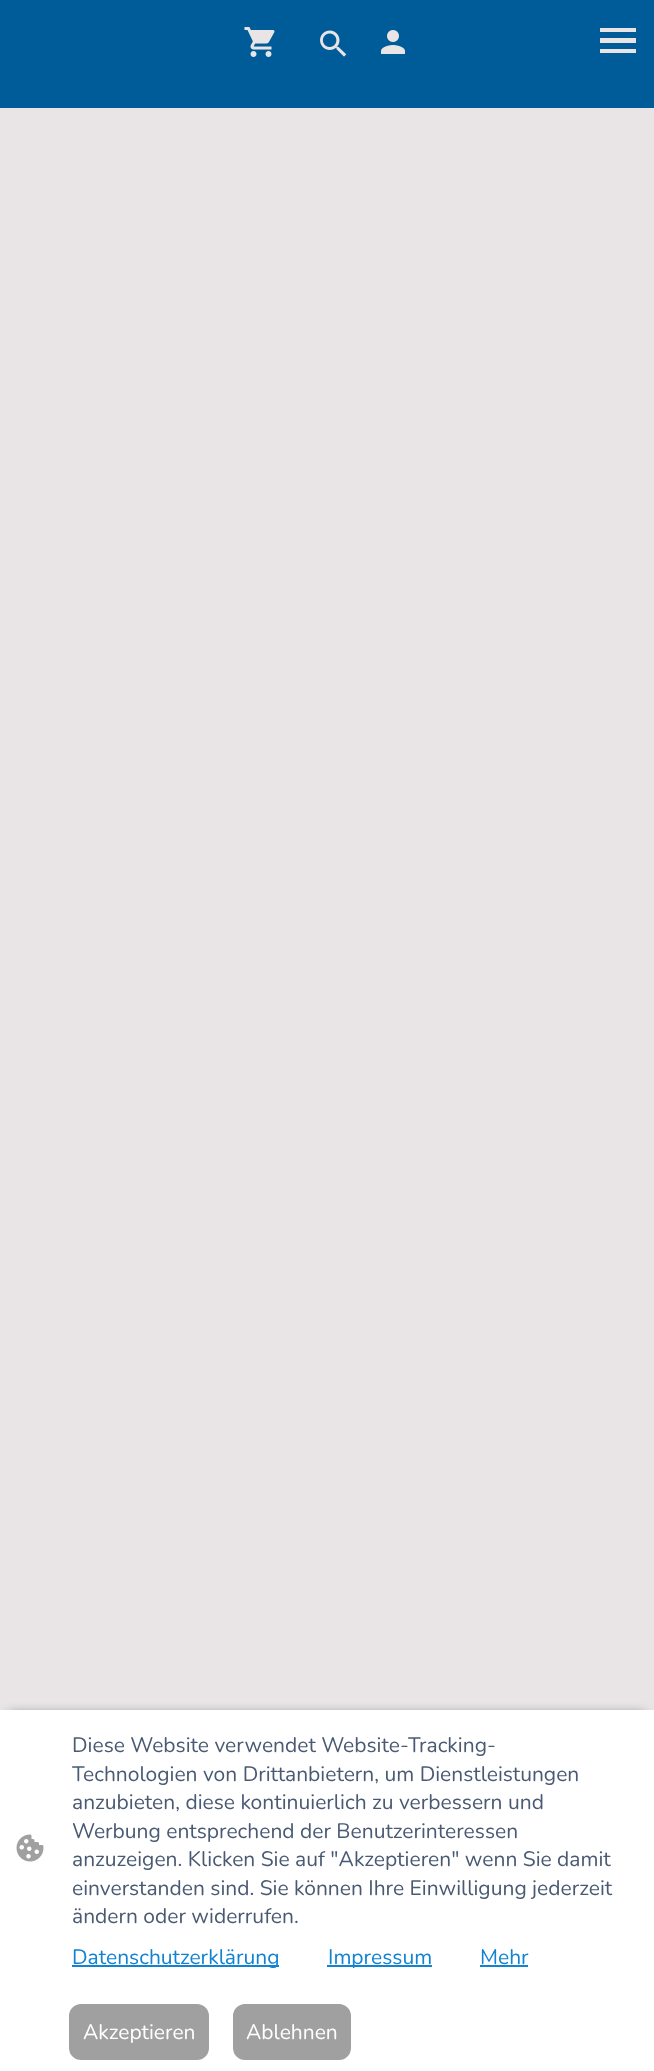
(async () => {
    const canvas = document.querySelector("canvas");
    canvas.width = 654;
    canvas.height = 2071;
    const context = canvas.getContext("2d");
    context.miterLimit = 4;
    context.fontKerning = "normal";
    function write(s, x, y, font, color) {
        context.font = font;
        context.fillStyle = color;
        context.fillText(s, x, y);
    }
    function block(x, y, w, h, color) {
        context.fillStyle = color;
        context.fillRect(x, y, w, h);
    }
    async function photo(src, x, y, w, h) {
        const img = new Image();
        img.src = src;
        await img.decode();
        context.drawImage(img, x, y, w, h);
    }

    block(0, 0, 654, 2071, "rgb(233, 229, 230)");
    block(0, 0, 654, 108, "rgb(0, 92, 153)");
    await photo("media/1.png", 244, 27, 31, 30);
    await photo("media/2.png", 320, 30, 27, 27);
    await photo("media/3.png", 381, 30, 24, 24);
    block(600, 28, 36, 4, "rgb(233, 229, 230)");
    block(600, 38, 36, 5, "rgb(233, 229, 230)");
    block(600, 49, 36, 4, "rgb(233, 229, 230)");
    context.fillStyle = "rgba(0, 0, 0, 0.63)";
    context.filter = "blur(6px)";
    context.beginPath();
    context.rect(9, 1715, 636, 343);
    context.fill();
    context.filter = "none";
    block(0, 1710, 654, 361, "rgb(255, 255, 255)");
    await photo("media/4.png", 16, 1834, 28, 28);
    write("Diese Website verwendet Website-Tracking-", 72, 1752, "21px Nunito", "rgb(74, 90, 115)");
    write("Technologien von Drittanbietern, um Dienstleistungen", 72, 1781, "21px Nunito", "rgb(74, 90, 115)");
    write("anzubieten, diese kontinuierlich zu verbessern und", 72, 1809, "21px Nunito", "rgb(74, 90, 115)");
    write("Werbung entsprechend der Benutzerinteressen", 72, 1838, "21px Nunito", "rgb(74, 90, 115)");
    write("anzuzeigen. Klicken Sie auf \"Akzeptieren\" wenn Sie damit", 72, 1866, "21px Nunito", "rgb(74, 90, 115)");
    write("einverstanden sind. Sie können Ihre Einwilligung jederzeit", 72, 1895, "21px Nunito", "rgb(74, 90, 115)");
    write("ändern oder widerrufen.", 72, 1923, "21px Nunito", "rgb(74, 90, 115)");
    block(72, 1965, 207, 2, "rgb(17, 131, 209)");
    write("Datenschutzerklärung", 72, 1964, "21px Nunito", "rgb(17, 131, 209)");
    block(327, 1965, 105, 2, "rgb(17, 131, 209)");
    write("Impressum", 328, 1964, "21px Nunito", "rgb(17, 131, 209)");
    write("Mehr", 480, 1964, "21px Nunito", "rgb(17, 131, 209)");
    block(480, 1965, 48, 2, "rgb(17, 131, 209)");
    context.fillStyle = "rgb(160, 160, 160)";
    context.beginPath();
    context.roundRect(70, 2005, 138, 54, 11);
    context.fill();
    context.strokeStyle = "rgb(160, 160, 160)";
    context.lineWidth = 2;
    context.stroke();
    write("Akzeptieren", 83, 2039, "21px Nunito", "rgb(255, 255, 255)");
    context.fillStyle = "rgb(160, 160, 160)";
    context.beginPath();
    context.roundRect(234, 2005, 116, 54, 11);
    context.fill();
    context.stroke();
    write("Ablehnen", 246, 2039, "21px Nunito", "rgb(255, 255, 255)");
})();
